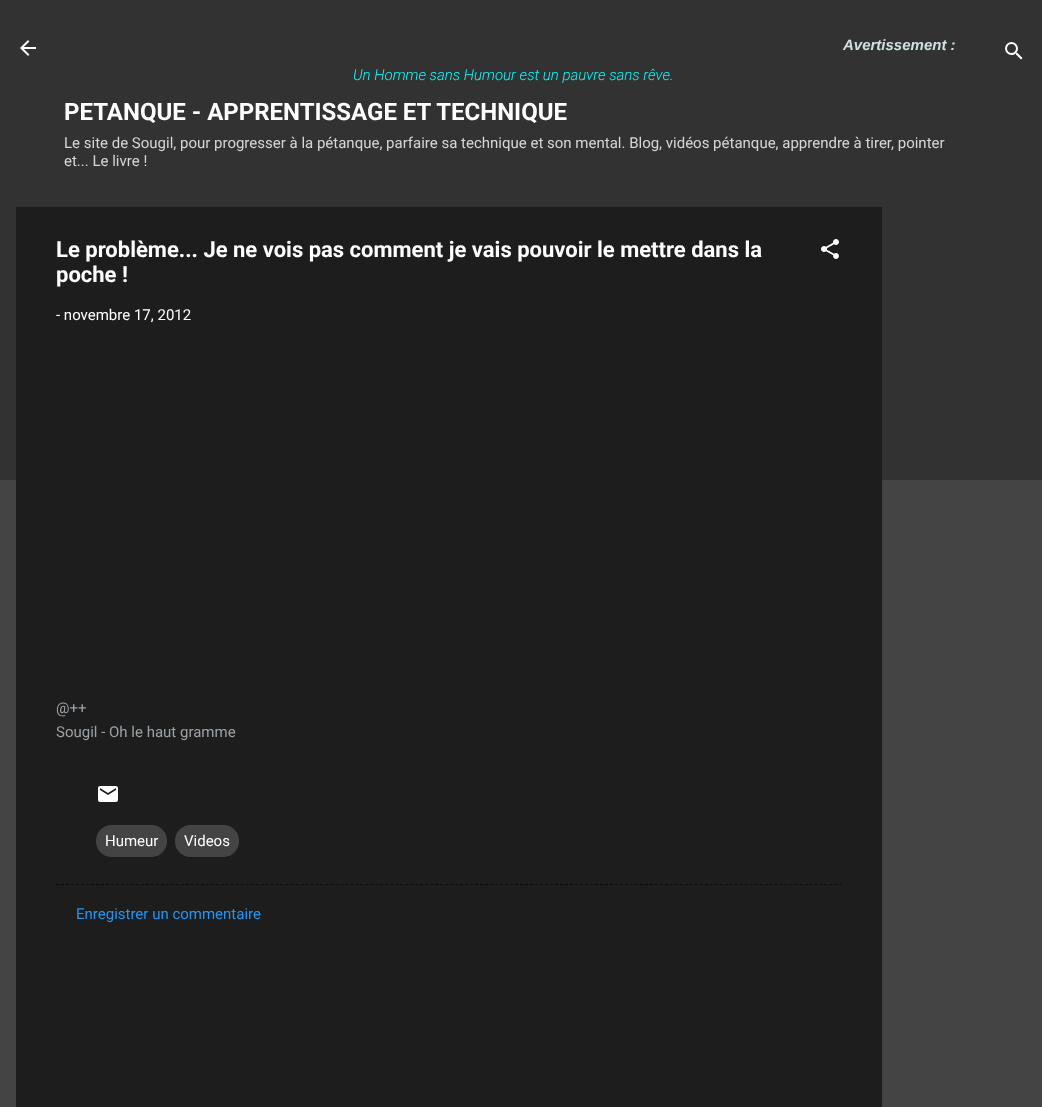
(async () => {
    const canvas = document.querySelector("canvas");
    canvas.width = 1042;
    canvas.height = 1107;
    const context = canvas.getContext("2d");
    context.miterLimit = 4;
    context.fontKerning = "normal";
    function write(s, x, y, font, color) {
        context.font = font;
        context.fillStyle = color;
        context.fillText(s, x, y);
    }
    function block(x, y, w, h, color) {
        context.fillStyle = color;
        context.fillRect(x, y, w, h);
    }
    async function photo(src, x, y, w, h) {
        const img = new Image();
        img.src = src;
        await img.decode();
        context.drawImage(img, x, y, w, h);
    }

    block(0, 0, 1042, 1107, "rgb(68, 68, 68)");
    block(0, 0, 1042, 480, "rgb(50, 50, 50)");
    await photo("media/1.png", 20, 40, 16, 16);
    write("Avertissement :", 843, 50, "italic bold 15px Liberation Sans", "rgb(208, 224, 227)");
    write("Un Homme sans Humour est un pauvre sans rêve.", 353, 80, "italic 300 15px Roboto", "rgb(0, 255, 255)");
    write("PETANQUE - APPRENTISSAGE ET TECHNIQUE", 64, 120, "bold 24px Roboto", "rgb(255, 255, 255)");
    write("Le site de Sougil, pour progresser à la pétanque, parfaire sa technique et son mental. Blog, vidéos pétanque, apprendre à tirer, pointer", 64, 148, "15px Roboto", "rgb(214, 214, 214)");
    write("et... Le livre !", 64, 166, "15px Roboto", "rgb(214, 214, 214)");
    await photo("media/2.png", 1005, 42, 18, 18);
    block(16, 207, 866, 900, "rgb(29, 29, 29)");
    write("Le problème... Je ne vois pas comment je vais pouvoir le mettre dans la", 56, 257, "bold 22px Roboto", "rgb(255, 255, 255)");
    write("poche !", 56, 282, "bold 22px Roboto", "rgb(255, 255, 255)");
    await photo("media/3.png", 821, 239, 18, 20);
    write("- novembre 17, 2012", 56, 320, "15px Roboto", "rgb(255, 255, 255)");
    write("@++", 56, 713, "15px Roboto", "rgb(155, 162, 168)");
    write("Sougil - Oh le haut gramme", 56, 737, "15px Roboto", "rgb(155, 162, 168)");
    await photo("media/4.png", 98, 786, 20, 16);
    context.fillStyle = "rgb(68, 68, 68)";
    context.beginPath();
    context.roundRect(96.5, 825.5, 70, 31, 14.5);
    context.fill();
    context.strokeStyle = "rgb(68, 68, 68)";
    context.stroke();
    write("Humeur", 105, 846, "15px Roboto", "rgb(255, 255, 255)");
    context.fillStyle = "rgb(68, 68, 68)";
    context.beginPath();
    context.roundRect(175.5, 825.5, 63, 31, 14.5);
    context.fill();
    context.stroke();
    write("Videos", 184, 846, "15px Roboto", "rgb(255, 255, 255)");
    context.beginPath();
    context.moveTo(56, 884.5);
    context.lineTo(842, 884.5);
    context.strokeStyle = "rgb(13, 13, 13)";
    context.setLineDash([3, 1.99]);
    context.stroke();
    write("Enregistrer un commentaire", 76, 919, "15px Roboto", "rgb(33, 150, 243)");
})();
